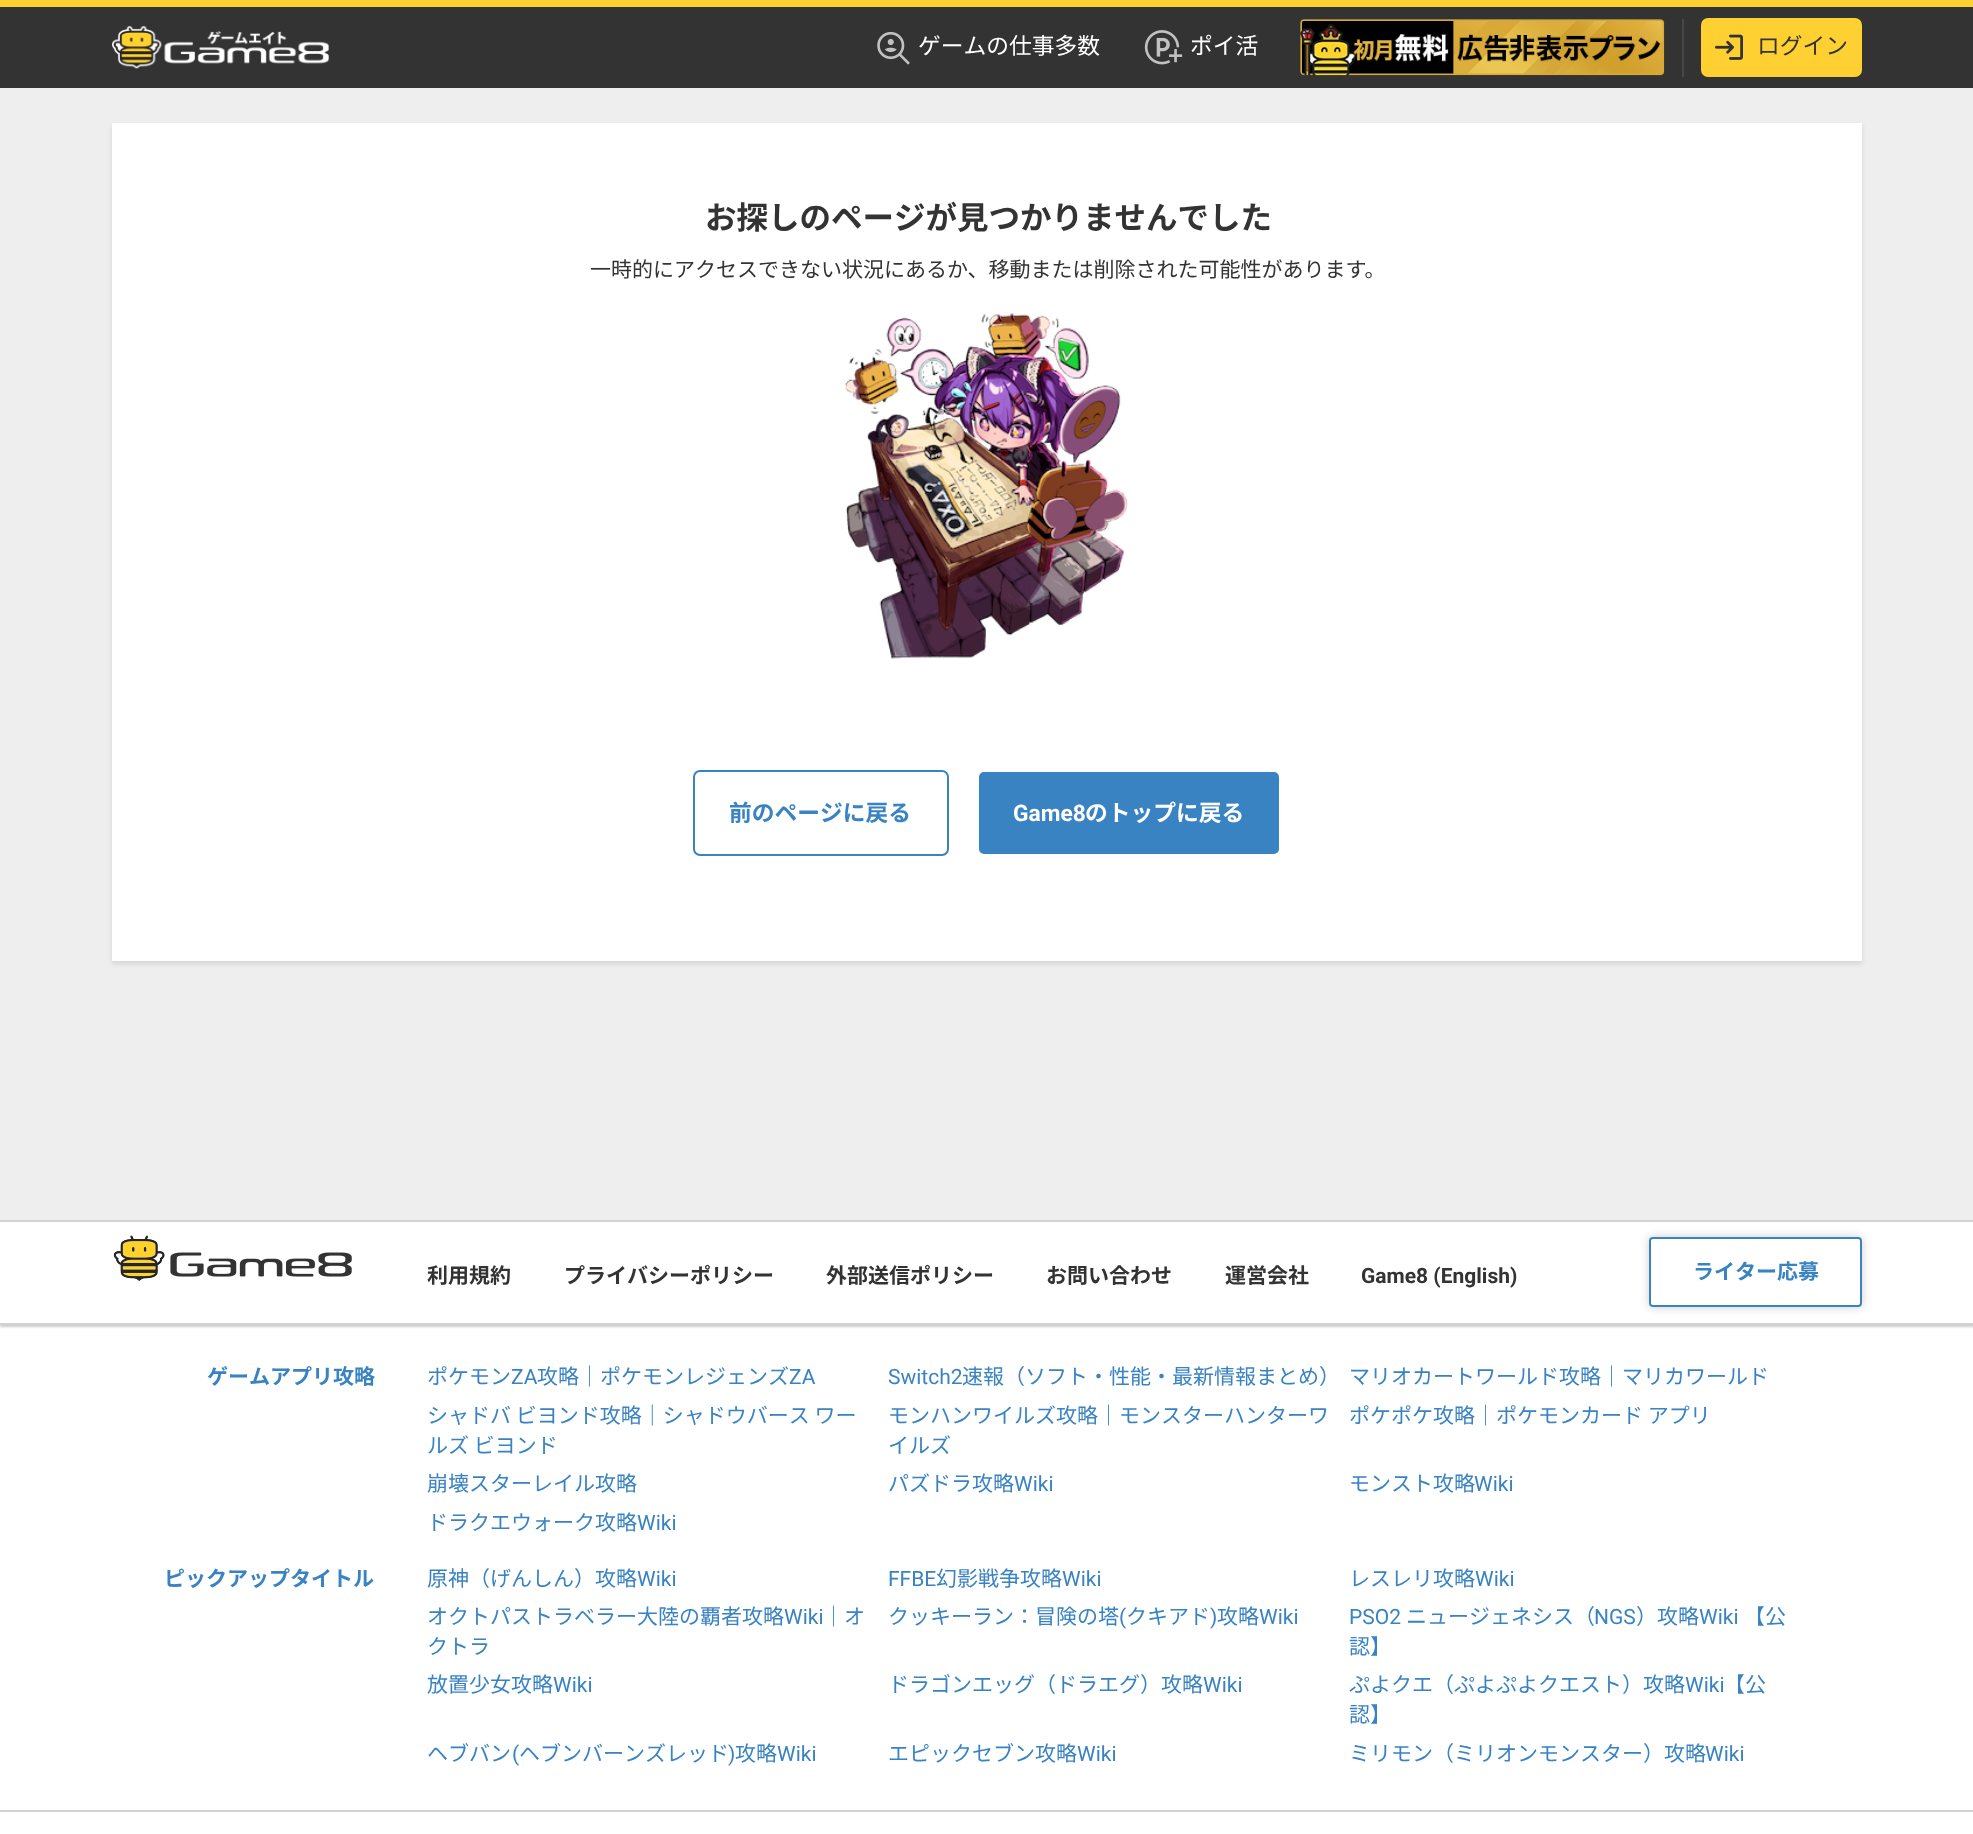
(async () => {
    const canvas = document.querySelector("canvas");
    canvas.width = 1973;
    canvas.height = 1834;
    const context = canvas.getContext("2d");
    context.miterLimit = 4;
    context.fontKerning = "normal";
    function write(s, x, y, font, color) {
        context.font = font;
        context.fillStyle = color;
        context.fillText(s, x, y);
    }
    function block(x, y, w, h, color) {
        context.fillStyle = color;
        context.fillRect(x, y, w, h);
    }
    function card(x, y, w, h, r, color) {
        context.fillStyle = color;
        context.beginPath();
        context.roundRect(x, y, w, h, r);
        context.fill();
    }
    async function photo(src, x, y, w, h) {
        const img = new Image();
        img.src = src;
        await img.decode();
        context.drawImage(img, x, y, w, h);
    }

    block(0, 0, 1973, 1834, "rgb(238, 238, 238)");
    block(0, 7, 1973, 81, "rgb(51, 51, 51)");
    block(0, 0, 1973, 7, "rgb(255, 208, 50)");
    await photo("media/1.png", 112, 26, 217, 43);
    await photo("media/2.png", 877, 32, 33, 33);
    write("ゲームの仕事多数", 918, 54, "22.75px Noto Sans CJK JP", "rgb(255, 255, 255)");
    await photo("media/3.png", 1144, 30, 39, 35);
    write("ポイ活", 1190, 54, "22.75px Noto Sans CJK JP", "rgb(255, 255, 255)");
    card(1300, 19, 364, 56, 4, "rgb(71, 71, 71)");
    await photo("media/4.png", 1300, 19, 365, 57);
    block(1682, 19, 2, 58, "rgb(71, 71, 71)");
    card(1701, 18, 161, 59, 7, "rgb(255, 208, 50)");
    await photo("media/5.png", 1715, 34, 28, 26);
    write("ログイン", 1757, 54, "22.75px Noto Sans CJK JP", "rgb(51, 51, 51)");
    context.fillStyle = "rgba(0, 0, 0, 0.1)";
    context.filter = "blur(2.5px)";
    context.beginPath();
    context.rect(112, 126, 1750, 838);
    context.fill();
    context.filter = "none";
    block(112, 123, 1750, 838, "rgb(255, 255, 255)");
    write("お探しのページが見つかりませんでした", 705, 229, "bold 31.5px Noto Sans CJK JP", "rgb(51, 51, 51)");
    write("一時的にアクセスできない状況にあるか、移動または削除された可能性があります。", 590, 277, "21px Noto Sans CJK JP", "rgb(51, 51, 51)");
    await photo("media/6.png", 845, 313, 283, 346);
    context.beginPath();
    context.roundRect(694, 771, 254, 84, 6);
    context.strokeStyle = "rgb(57, 131, 195)";
    context.lineWidth = 2;
    context.stroke();
    write("前のページに戻る", 729, 821, "bold 22.75px Noto Sans CJK JP", "rgb(57, 131, 195)");
    context.beginPath();
    context.roundRect(978, 771, 302, 84, 6);
    context.fill();
    context.strokeStyle = "rgb(255, 255, 255)";
    context.stroke();
    write("Game8", 1013, 821, "bold 22.75px Roboto", "rgb(255, 255, 255)");
    write("のトップに戻る", 1085, 821, "bold 22.75px Noto Sans CJK JP", "rgb(255, 255, 255)");
    block(0, 1325, 1973, 485, "rgb(255, 255, 255)");
    context.fillStyle = "rgba(0, 0, 0, 0.2)";
    context.filter = "blur(1px)";
    context.beginPath();
    context.rect(0, 1222, 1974, 105);
    context.fill();
    context.filter = "none";
    block(0, 1222, 1973, 101, "rgb(255, 255, 255)");
    block(0, 1220, 1973, 2, "rgb(210, 210, 210)");
    block(0, 1323, 1973, 2, "rgb(210, 210, 210)");
    await photo("media/7.png", 113, 1235, 239, 46);
    write("利用規約", 427, 1283, "bold 21px Noto Sans CJK JP", "rgb(51, 51, 51)");
    write("プライバシーポリシー", 564, 1283, "bold 21px Noto Sans CJK JP", "rgb(51, 51, 51)");
    write("外部送信ポリシー", 826, 1283, "bold 21px Noto Sans CJK JP", "rgb(51, 51, 51)");
    write("お問い合わせ", 1046, 1283, "bold 21px Noto Sans CJK JP", "rgb(51, 51, 51)");
    write("運営会社", 1225, 1283, "bold 21px Noto Sans CJK JP", "rgb(51, 51, 51)");
    write("Game8 (English)", 1361, 1283, "bold 21px Roboto", "rgb(51, 51, 51)");
    context.save();
    context.beginPath();
    context.moveTo(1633, 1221);
    context.lineTo(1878, 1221);
    context.lineTo(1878, 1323);
    context.lineTo(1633, 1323);
    context.closePath();
    context.moveTo(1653, 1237);
    context.lineTo(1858, 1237);
    context.bezierCurveTo(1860, 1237, 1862, 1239, 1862, 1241);
    context.lineTo(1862, 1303);
    context.bezierCurveTo(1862, 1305, 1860, 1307, 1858, 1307);
    context.lineTo(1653, 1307);
    context.bezierCurveTo(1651, 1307, 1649, 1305, 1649, 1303);
    context.lineTo(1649, 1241);
    context.bezierCurveTo(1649, 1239, 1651, 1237, 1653, 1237);
    context.closePath();
    context.clip("evenodd");
    context.fillStyle = "rgba(0, 0, 0, 0.2)";
    context.filter = "blur(5px)";
    context.beginPath();
    context.roundRect(1649, 1237, 213, 70, 4);
    context.fill();
    context.filter = "none";
    context.restore();
    context.beginPath();
    context.roundRect(1650, 1238, 211, 68, 3);
    context.strokeStyle = "rgb(57, 131, 195)";
    context.stroke();
    write("ライター応募", 1693, 1279, "bold 21px Noto Sans CJK JP", "rgb(57, 131, 195)");
    write("ゲームアプリ攻略", 207, 1384, "bold 21px Noto Sans CJK JP", "rgb(57, 131, 195)");
    write("ポケモン", 427, 1384, "21px Noto Sans CJK JP", "rgb(57, 131, 195)");
    write("ZA", 511, 1384, "21px Roboto", "rgb(57, 131, 195)");
    write("攻略｜ポケモンレジェンズ", 537, 1384, "21px Noto Sans CJK JP", "rgb(57, 131, 195)");
    write("ZA", 789, 1384, "21px Roboto", "rgb(57, 131, 195)");
    write("Switch2", 888, 1384, "21px Roboto", "rgb(57, 131, 195)");
    write("速報（ソフト・性能・最新情報まとめ）", 962, 1384, "21px Noto Sans CJK JP", "rgb(57, 131, 195)");
    write("マリオカートワールド攻略｜マリカワールド", 1349, 1384, "21px Noto Sans CJK JP", "rgb(57, 131, 195)");
    write("シャドバ ビヨンド攻略｜シャドウバース ワー", 427, 1423, "21px Noto Sans CJK JP", "rgb(57, 131, 195)");
    write("ルズ ビヨンド", 427, 1453, "21px Noto Sans CJK JP", "rgb(57, 131, 195)");
    write("モンハンワイルズ攻略｜モンスターハンターワ", 888, 1423, "21px Noto Sans CJK JP", "rgb(57, 131, 195)");
    write("イルズ", 888, 1453, "21px Noto Sans CJK JP", "rgb(57, 131, 195)");
    write("ポケポケ攻略｜ポケモンカード アプリ", 1349, 1423, "21px Noto Sans CJK JP", "rgb(57, 131, 195)");
    write("崩壊スターレイル攻略", 427, 1491, "21px Noto Sans CJK JP", "rgb(57, 131, 195)");
    write("パズドラ攻略", 888, 1491, "21px Noto Sans CJK JP", "rgb(57, 131, 195)");
    write("Wiki", 1014, 1491, "21px Roboto", "rgb(57, 131, 195)");
    write("モンスト攻略", 1349, 1491, "21px Noto Sans CJK JP", "rgb(57, 131, 195)");
    write("Wiki", 1474, 1491, "21px Roboto", "rgb(57, 131, 195)");
    write("ドラクエウォーク攻略", 427, 1530, "21px Noto Sans CJK JP", "rgb(57, 131, 195)");
    write("Wiki", 637, 1530, "21px Roboto", "rgb(57, 131, 195)");
    write("ピックアップタイトル", 164, 1586, "bold 21px Noto Sans CJK JP", "rgb(57, 131, 195)");
    write("原神（げんしん）攻略", 427, 1586, "21px Noto Sans CJK JP", "rgb(57, 131, 195)");
    write("Wiki", 637, 1586, "21px Roboto", "rgb(57, 131, 195)");
    write("FFBE", 888, 1586, "21px Roboto", "rgb(57, 131, 195)");
    write("幻影戦争攻略", 936, 1586, "21px Noto Sans CJK JP", "rgb(57, 131, 195)");
    write("Wiki", 1062, 1586, "21px Roboto", "rgb(57, 131, 195)");
    write("レスレリ攻略", 1349, 1586, "21px Noto Sans CJK JP", "rgb(57, 131, 195)");
    write("Wiki", 1475, 1586, "21px Roboto", "rgb(57, 131, 195)");
    write("オクトパストラベラー大陸の覇者攻略", 427, 1624, "21px Noto Sans CJK JP", "rgb(57, 131, 195)");
    write("Wiki", 784, 1624, "21px Roboto", "rgb(57, 131, 195)");
    write("｜オ", 823, 1624, "21px Noto Sans CJK JP", "rgb(57, 131, 195)");
    write("クトラ", 427, 1654, "21px Noto Sans CJK JP", "rgb(57, 131, 195)");
    write("クッキーラン：冒険の塔", 888, 1624, "21px Noto Sans CJK JP", "rgb(57, 131, 195)");
    write("(", 1119, 1624, "21px Roboto", "rgb(57, 131, 195)");
    write("クキアド", 1126, 1624, "21px Noto Sans CJK JP", "rgb(57, 131, 195)");
    write(")", 1210, 1624, "21px Roboto", "rgb(57, 131, 195)");
    write("攻略", 1217, 1624, "21px Noto Sans CJK JP", "rgb(57, 131, 195)");
    write("Wiki", 1259, 1624, "21px Roboto", "rgb(57, 131, 195)");
    write("PSO2", 1349, 1624, "21px Roboto", "rgb(57, 131, 195)");
    write("ニュージェネシス（", 1406, 1624, "21px Noto Sans CJK JP", "rgb(57, 131, 195)");
    write("NGS", 1594, 1624, "21px Roboto", "rgb(57, 131, 195)");
    write("）攻略", 1636, 1624, "21px Noto Sans CJK JP", "rgb(57, 131, 195)");
    write("Wiki", 1699, 1624, "21px Roboto", "rgb(57, 131, 195)");
    write("【公", 1744, 1624, "21px Noto Sans CJK JP", "rgb(57, 131, 195)");
    write("認】", 1349, 1654, "21px Noto Sans CJK JP", "rgb(57, 131, 195)");
    write("放置少女攻略", 427, 1692, "21px Noto Sans CJK JP", "rgb(57, 131, 195)");
    write("Wiki", 553, 1692, "21px Roboto", "rgb(57, 131, 195)");
    write("ドラゴンエッグ（ドラエグ）攻略", 888, 1692, "21px Noto Sans CJK JP", "rgb(57, 131, 195)");
    write("Wiki", 1203, 1692, "21px Roboto", "rgb(57, 131, 195)");
    write("ぷよクエ（ぷよぷよクエスト）攻略", 1349, 1692, "21px Noto Sans CJK JP", "rgb(57, 131, 195)");
    write("Wiki", 1685, 1692, "21px Roboto", "rgb(57, 131, 195)");
    write("【公", 1724, 1692, "21px Noto Sans CJK JP", "rgb(57, 131, 195)");
    write("認】", 1349, 1722, "21px Noto Sans CJK JP", "rgb(57, 131, 195)");
    write("ヘブバン", 427, 1761, "21px Noto Sans CJK JP", "rgb(57, 131, 195)");
    write("(", 512, 1761, "21px Roboto", "rgb(57, 131, 195)");
    write("ヘブンバーンズレッド", 519, 1761, "21px Noto Sans CJK JP", "rgb(57, 131, 195)");
    write(")", 728, 1761, "21px Roboto", "rgb(57, 131, 195)");
    write("攻略", 735, 1761, "21px Noto Sans CJK JP", "rgb(57, 131, 195)");
    write("Wiki", 777, 1761, "21px Roboto", "rgb(57, 131, 195)");
    write("エピックセブン攻略", 888, 1761, "21px Noto Sans CJK JP", "rgb(57, 131, 195)");
    write("Wiki", 1077, 1761, "21px Roboto", "rgb(57, 131, 195)");
    write("ミリモン（ミリオンモンスター）攻略", 1349, 1761, "21px Noto Sans CJK JP", "rgb(57, 131, 195)");
    write("Wiki", 1705, 1761, "21px Roboto", "rgb(57, 131, 195)");
    block(0, 1812, 1973, 22, "rgb(255, 255, 255)");
    block(0, 1810, 1973, 2, "rgb(210, 210, 210)");
})();
